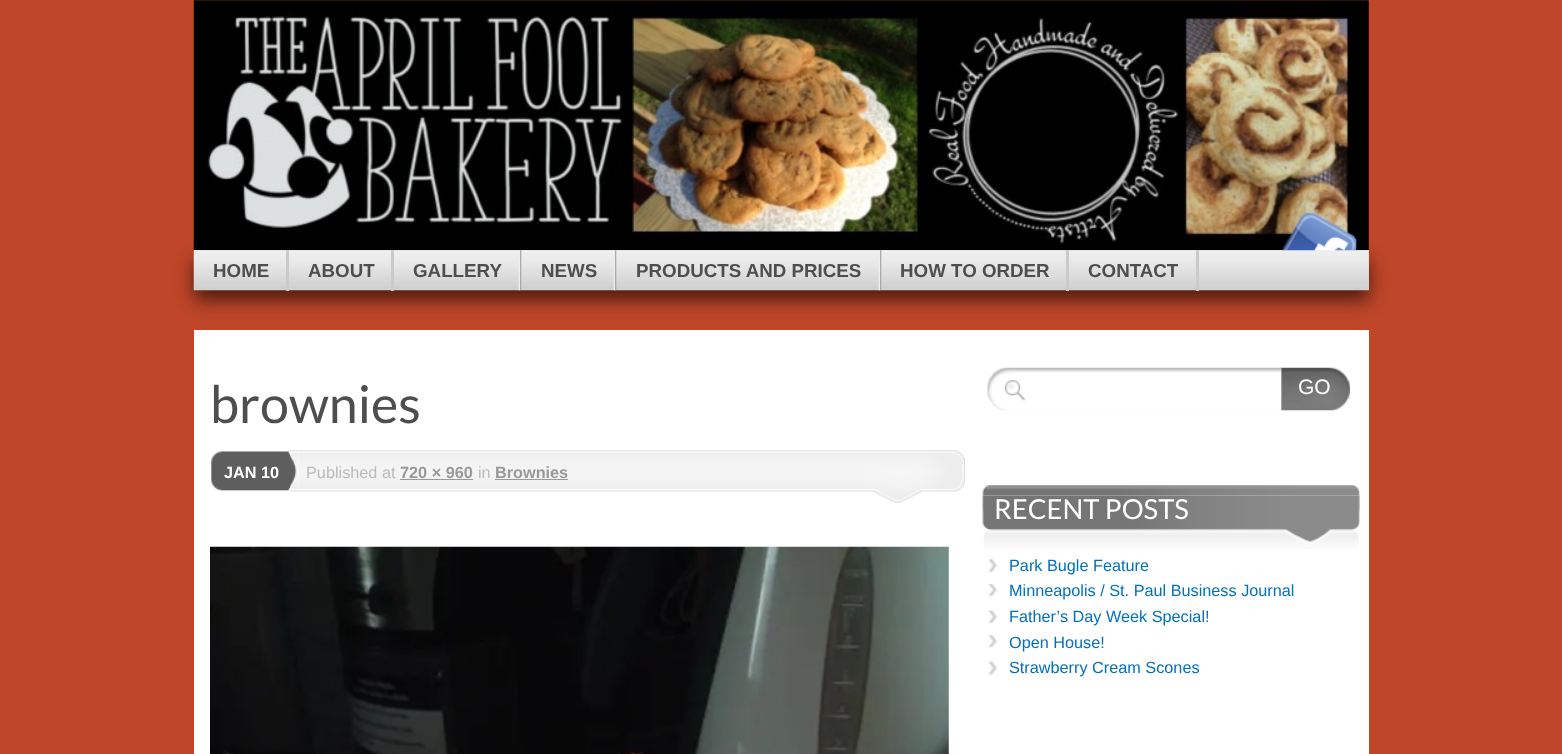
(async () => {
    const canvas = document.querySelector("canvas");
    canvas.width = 1562;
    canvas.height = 754;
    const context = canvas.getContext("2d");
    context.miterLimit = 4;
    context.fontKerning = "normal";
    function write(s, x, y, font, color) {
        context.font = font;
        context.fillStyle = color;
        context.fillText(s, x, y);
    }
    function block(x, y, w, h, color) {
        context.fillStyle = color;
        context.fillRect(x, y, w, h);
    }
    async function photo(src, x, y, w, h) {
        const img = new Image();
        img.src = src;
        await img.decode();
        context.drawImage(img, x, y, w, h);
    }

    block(0, 0, 1562, 754, "rgb(191, 70, 40)");
    await photo("media/1.png", 193, 0, 1176, 251);
    context.fillStyle = "rgba(0, 0, 0, 0.6)";
    context.filter = "blur(9px)";
    context.beginPath();
    context.rect(194, 260, 1175, 40);
    context.fill();
    context.filter = "none";
    block(194, 250, 1175, 40, "rgb(208, 208, 208)");
    await photo("media/2.png", 1281, 212, 76, 39);
    await photo("media/3.png", 193, 250, 1176, 41);
    block(286, 250, 3, 41, "rgb(202, 202, 202)");
    write("HOME", 213, 277, "bold 18.75px Liberation Sans", "rgb(78, 78, 78)");
    block(391, 250, 3, 41, "rgb(202, 202, 202)");
    write("ABOUT", 308, 277, "bold 18.75px Liberation Sans", "rgb(78, 78, 78)");
    await photo("media/4.png", 518, 250, 4, 41);
    write("GALLERY", 413, 277, "bold 18.75px Liberation Sans", "rgb(78, 78, 78)");
    await photo("media/4.png", 613, 250, 4, 41);
    write("NEWS", 541, 277, "bold 18.75px Liberation Sans", "rgb(78, 78, 78)");
    await photo("media/4.png", 878, 250, 4, 41);
    write("PRODUCTS AND PRICES", 636, 277, "bold 18.75px Liberation Sans", "rgb(78, 78, 78)");
    block(1066, 250, 3, 41, "rgb(202, 202, 202)");
    write("HOW TO ORDER", 900, 277, "bold 18.75px Liberation Sans", "rgb(78, 78, 78)");
    block(1196, 250, 3, 41, "rgb(202, 202, 202)");
    write("CONTACT", 1088, 277, "bold 18.75px Liberation Sans", "rgb(78, 78, 78)");
    block(194, 330, 1175, 424, "rgb(255, 255, 255)");
    write("brownies", 210, 423, "52px Lato", "rgb(78, 78, 78)");
    await photo("media/5.png", 211, 451, 13, 40);
    await photo("media/6.png", 224, 450, 75, 42);
    write("JAN 10", 224, 478, "bold 16.25px Liberation Sans", "rgb(255, 255, 255)");
    await photo("media/7.png", 299, 450, 666, 53);
    write("Published at", 306, 478, "16.25px Liberation Sans", "rgb(187, 187, 187)");
    write("720 × 960", 400, 478, "bold 16.25px Liberation Sans", "rgb(153, 153, 153)");
    block(400, 479, 73, 1, "rgb(153, 153, 153)");
    write("in", 478, 478, "16.25px Liberation Sans", "rgb(187, 187, 187)");
    write("Brownies", 495, 478, "bold 16.25px Liberation Sans", "rgb(153, 153, 153)");
    block(495, 479, 73, 1, "rgb(153, 153, 153)");
    await photo("media/8.png", 210, 546, 739, 208);
    await photo("media/9.png", 987, 367, 295, 44);
    await photo("media/10.png", 1281, 367, 69, 44);
    write("GO", 1298, 394, "21px Liberation Sans", "rgb(255, 255, 255)");
    await photo("media/11.png", 982, 485, 378, 10);
    await photo("media/12.png", 982, 495, 378, 54);
    write("RECENT POSTS", 994, 519, "27.5px Lato", "rgb(255, 255, 255)");
    await photo("media/13.png", 988, 559, 10, 14);
    write("Park Bugle Feature", 1009, 571, "16.25px Liberation Sans", "rgb(0, 113, 187)");
    await photo("media/14.png", 988, 584, 10, 13);
    write("Minneapolis / St. Paul Business Journal", 1009, 596, "16.25px Liberation Sans", "rgb(0, 113, 187)");
    await photo("media/15.png", 988, 610, 10, 14);
    write("Father’s Day Week Special!", 1009, 622, "16.25px Liberation Sans", "rgb(0, 113, 187)");
    await photo("media/16.png", 988, 635, 10, 13);
    write("Open House!", 1009, 648, "16.25px Liberation Sans", "rgb(0, 113, 187)");
    await photo("media/17.png", 988, 661, 10, 15);
    write("Strawberry Cream Scones", 1009, 673, "16.25px Liberation Sans", "rgb(0, 113, 187)");
})();
